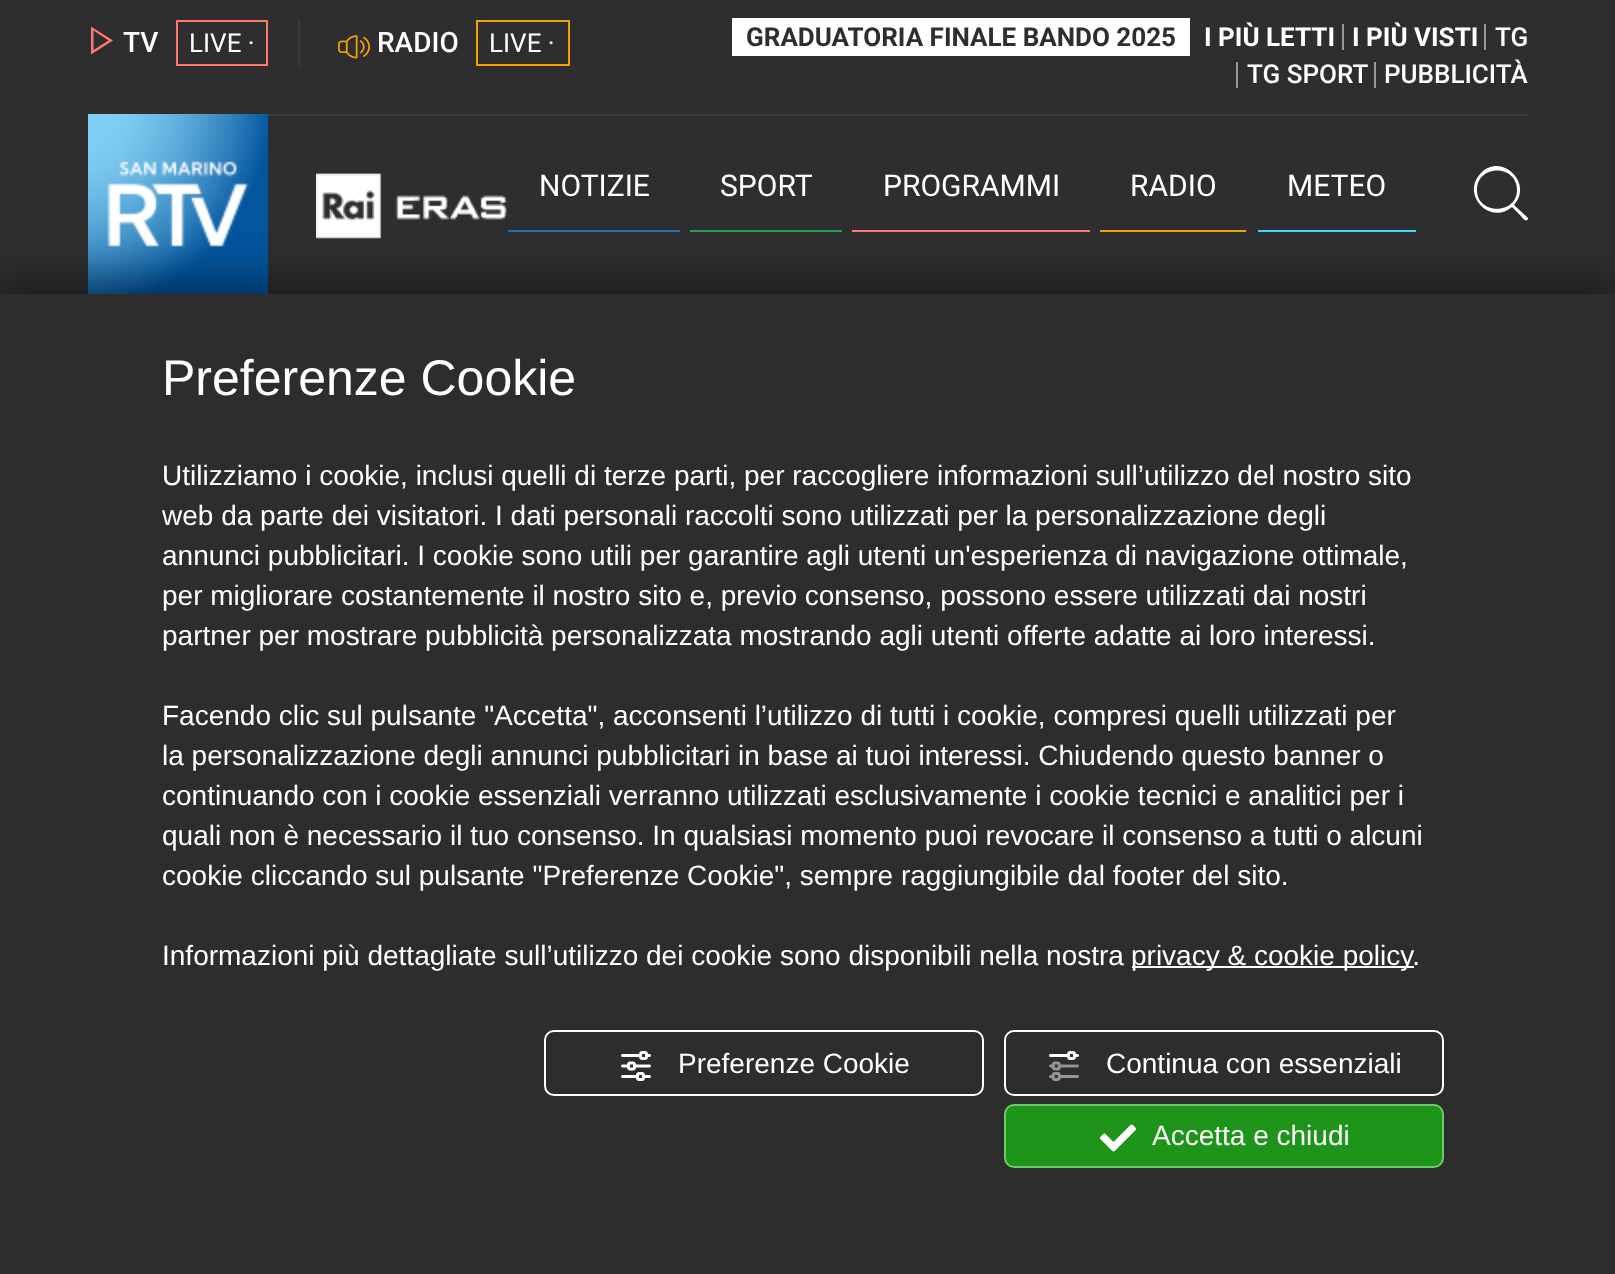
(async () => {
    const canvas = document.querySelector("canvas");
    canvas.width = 1615;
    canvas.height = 1274;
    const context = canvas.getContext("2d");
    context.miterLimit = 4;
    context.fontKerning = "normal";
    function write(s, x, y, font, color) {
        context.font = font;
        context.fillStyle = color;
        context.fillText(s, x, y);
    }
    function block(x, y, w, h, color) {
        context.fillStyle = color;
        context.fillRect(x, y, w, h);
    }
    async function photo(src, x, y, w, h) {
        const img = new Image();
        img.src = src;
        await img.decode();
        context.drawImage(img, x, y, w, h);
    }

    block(0, 0, 1615, 1274, "rgb(46, 46, 48)");
    block(268, 114, 1260, 2, "rgb(58, 58, 58)");
    block(298, 20, 2, 46, "rgb(58, 58, 58)");
    context.fillStyle = "rgb(255, 120, 109)";
    context.beginPath();
    context.moveTo(93.5, 30.5);
    context.lineTo(108.5, 40.5);
    context.lineTo(93.5, 50);
    context.closePath();
    context.moveTo(91, 26.5);
    context.lineTo(91, 54.5);
    context.lineTo(113, 40.5);
    context.closePath();
    context.fill();
    write("TV", 123, 52, "500 28px Roboto", "rgb(255, 255, 255)");
    context.strokeStyle = "rgb(255, 120, 109)";
    context.lineWidth = 2;
    context.strokeRect(177, 21, 90, 44);
    write("LIVE ·", 189, 52, "26px Roboto", "rgb(255, 255, 255)");
    await photo("media/1.png", 338, 35, 32, 24);
    write("RADIO", 377, 52, "500 28px Roboto", "rgb(255, 255, 255)");
    context.strokeStyle = "rgb(240, 162, 2)";
    context.strokeRect(477, 21, 92, 44);
    write("LIVE ·", 489, 52, "26px Roboto", "rgb(255, 255, 255)");
    block(732, 18, 458, 38, "rgb(255, 255, 255)");
    write("GRADUATORIA FINALE BANDO 2025", 746, 46, "bold 26px Roboto", "rgb(46, 46, 48)");
    write("I PIÙ LETTI", 1204, 46, "bold 26px Roboto", "rgb(255, 255, 255)");
    block(1342, 24, 2, 26, "rgb(153, 153, 153)");
    write("I PIÙ VISTI", 1352, 46, "bold 26px Roboto", "rgb(255, 255, 255)");
    block(1484, 24, 2, 26, "rgb(153, 153, 153)");
    write("TG", 1495, 46, "500 26px Roboto", "rgb(255, 255, 255)");
    block(1236, 62, 2, 26, "rgb(153, 153, 153)");
    write("TG SPORT", 1247, 83, "500 26px Roboto", "rgb(255, 255, 255)");
    block(1374, 62, 2, 26, "rgb(153, 153, 153)");
    write("PUBBLICITÀ", 1384, 83, "500 26px Roboto", "rgb(255, 255, 255)");
    await photo("media/2.png", 88, 114, 180, 180);
    await photo("media/3.png", 316, 173, 191, 66);
    block(508, 230, 172, 2, "rgb(32, 113, 175)");
    write("NOTIZIE", 539, 196, "30px Roboto", "rgb(255, 255, 255)");
    block(690, 230, 152, 2, "rgb(38, 158, 81)");
    write("SPORT", 720, 196, "30px Roboto", "rgb(255, 255, 255)");
    block(852, 230, 238, 2, "rgb(255, 120, 109)");
    write("PROGRAMMI", 883, 196, "30px Roboto", "rgb(255, 255, 255)");
    block(1100, 230, 146, 2, "rgb(240, 162, 2)");
    write("RADIO", 1130, 196, "30px Roboto", "rgb(255, 255, 255)");
    block(1258, 230, 158, 2, "rgb(61, 221, 250)");
    write("METEO", 1287, 196, "30px Roboto", "rgb(255, 255, 255)");
    context.beginPath();
    context.moveTo(1528, 218);
    context.lineTo(1514, 205);
    context.bezierCurveTo(1534, 183, 1501, 152, 1481, 173);
    context.bezierCurveTo(1460, 194, 1490, 226, 1512, 207);
    context.lineTo(1521, 216);
    context.bezierCurveTo(1521, 216, 1525, 222, 1527, 220);
    context.bezierCurveTo(1528, 220, 1528, 218, 1528, 218);
    context.closePath();
    context.moveTo(1477, 190);
    context.bezierCurveTo(1477, 164, 1517, 164, 1517, 190);
    context.bezierCurveTo(1517, 215, 1477, 215, 1477, 190);
    context.closePath();
    context.fill();
    context.fillStyle = "rgba(0, 0, 0, 0.38)";
    context.filter = "blur(20px)";
    context.beginPath();
    context.rect(0, 278, 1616, 980);
    context.fill();
    context.filter = "none";
    block(0, 294, 1615, 980, "rgb(45, 45, 45)");
    write("Preferenze Cookie", 162, 395, "50px Liberation Sans", "rgb(255, 255, 255)");
    write("Utilizziamo i cookie, inclusi quelli di terze parti, per raccogliere informazioni sull’utilizzo del nostro sito", 162, 485, "28px Liberation Sans", "rgb(255, 255, 255)");
    write("web da parte dei visitatori. I dati personali raccolti sono utilizzati per la personalizzazione degli", 162, 525, "28px Liberation Sans", "rgb(255, 255, 255)");
    write("annunci pubblicitari. I cookie sono utili per garantire agli utenti un'esperienza di navigazione ottimale,", 162, 565, "28px Liberation Sans", "rgb(255, 255, 255)");
    write("per migliorare costantemente il nostro sito e, previo consenso, possono essere utilizzati dai nostri", 162, 605, "28px Liberation Sans", "rgb(255, 255, 255)");
    write("partner per mostrare pubblicità personalizzata mostrando agli utenti offerte adatte ai loro interessi.", 162, 645, "28px Liberation Sans", "rgb(255, 255, 255)");
    write("Facendo clic sul pulsante \"Accetta\", acconsenti l’utilizzo di tutti i cookie, compresi quelli utilizzati per", 162, 725, "28px Liberation Sans", "rgb(255, 255, 255)");
    write("la personalizzazione degli annunci pubblicitari in base ai tuoi interessi. Chiudendo questo banner o", 162, 765, "28px Liberation Sans", "rgb(255, 255, 255)");
    write("continuando con i cookie essenziali verranno utilizzati esclusivamente i cookie tecnici e analitici per i", 162, 805, "28px Liberation Sans", "rgb(255, 255, 255)");
    write("quali non è necessario il tuo consenso. In qualsiasi momento puoi revocare il consenso a tutti o alcuni", 162, 845, "28px Liberation Sans", "rgb(255, 255, 255)");
    write("cookie cliccando sul pulsante \"Preferenze Cookie\", sempre raggiungibile dal footer del sito.", 162, 885, "28px Liberation Sans", "rgb(255, 255, 255)");
    write("Informazioni più dettagliate sull’utilizzo dei cookie sono disponibili nella nostra", 162, 965, "28px Liberation Sans", "rgb(255, 255, 255)");
    block(1132, 966, 282, 2, "rgb(255, 255, 255)");
    write("privacy & cookie policy.", 1131, 965, "28px Liberation Sans", "rgb(255, 255, 255)");
    context.beginPath();
    context.roundRect(545, 1031, 438, 64, 9);
    context.strokeStyle = "rgb(255, 255, 255)";
    context.stroke();
    await photo("media/4.png", 621, 1051, 30, 30);
    write("Preferenze Cookie", 678, 1073, "28px Liberation Sans", "rgb(255, 255, 255)");
    context.beginPath();
    context.roundRect(1005, 1031, 438, 64, 9);
    context.stroke();
    await photo("media/5.png", 1049, 1051, 30, 30);
    write("Continua con essenziali", 1106, 1073, "28px Liberation Sans", "rgb(255, 255, 255)");
    context.fillStyle = "rgb(30, 148, 26)";
    context.beginPath();
    context.roundRect(1005, 1105, 438, 62, 9);
    context.fill();
    context.strokeStyle = "rgb(108, 202, 105)";
    context.stroke();
    await photo("media/6.png", 1100, 1124, 36, 28);
    write("Accetta e chiudi", 1152, 1145, "28px Liberation Sans", "rgb(255, 255, 255)");
})();
